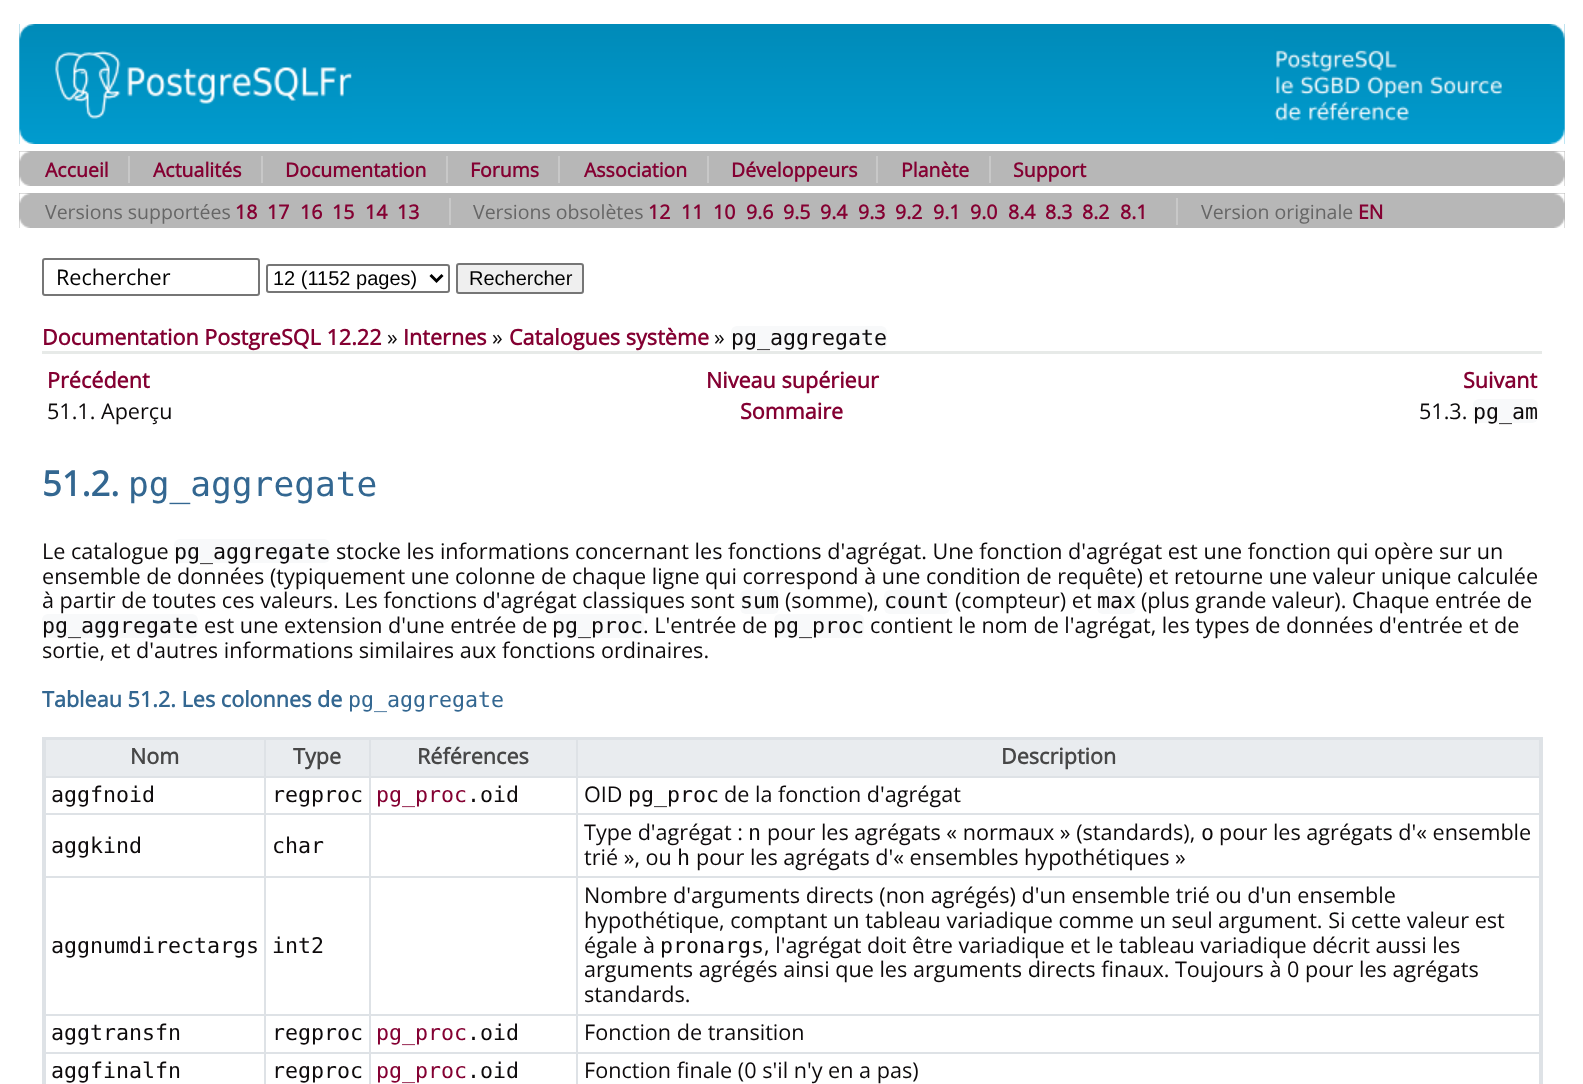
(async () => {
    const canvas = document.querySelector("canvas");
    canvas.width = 1583;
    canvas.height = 1084;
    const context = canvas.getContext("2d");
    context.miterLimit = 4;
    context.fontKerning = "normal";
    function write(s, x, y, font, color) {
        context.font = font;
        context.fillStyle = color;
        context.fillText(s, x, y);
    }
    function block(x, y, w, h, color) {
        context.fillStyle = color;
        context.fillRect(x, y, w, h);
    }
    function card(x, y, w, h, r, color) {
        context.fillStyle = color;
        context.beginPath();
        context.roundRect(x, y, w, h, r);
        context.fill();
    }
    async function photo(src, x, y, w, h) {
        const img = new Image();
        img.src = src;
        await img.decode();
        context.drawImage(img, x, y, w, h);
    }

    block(0, 0, 1583, 1084, "rgb(255, 255, 255)");
    await photo("media/1.png", 19, 24, 1546, 120);
    await photo("media/2.png", 19, 24, 333, 120);
    await photo("media/3.png", 1274, 24, 291, 120);
    block(19, 151, 1546, 35, "rgb(183, 183, 183)");
    await photo("media/4.png", 19, 151, 11, 35);
    write("Accueil", 45, 177, "bold 19.5px Open Sans", "rgb(132, 0, 50)");
    write("Actualités", 153, 177, "bold 19.5px Open Sans", "rgb(132, 0, 50)");
    block(128, 156, 2, 27, "rgb(200, 200, 200)");
    write("Documentation", 285, 177, "bold 19.5px Open Sans", "rgb(132, 0, 50)");
    block(261, 156, 2, 27, "rgb(200, 200, 200)");
    write("Forums", 470, 177, "bold 19.5px Open Sans", "rgb(132, 0, 50)");
    block(446, 156, 2, 27, "rgb(200, 200, 200)");
    write("Association", 584, 177, "bold 19.5px Open Sans", "rgb(132, 0, 50)");
    block(558, 156, 2, 27, "rgb(200, 200, 200)");
    write("Développeurs", 731, 177, "bold 19.5px Open Sans", "rgb(132, 0, 50)");
    block(707, 156, 2, 27, "rgb(200, 200, 200)");
    write("Planète", 901, 177, "bold 19.5px Open Sans", "rgb(132, 0, 50)");
    block(876, 156, 2, 27, "rgb(200, 200, 200)");
    write("Support", 1013, 177, "bold 19.5px Open Sans", "rgb(132, 0, 50)");
    block(989, 156, 2, 27, "rgb(200, 200, 200)");
    await photo("media/5.png", 1554, 151, 11, 35);
    block(19, 193, 1546, 35, "rgb(183, 183, 183)");
    await photo("media/4.png", 19, 193, 11, 35);
    write("Versions supportées", 45, 219, "19.5px Open Sans", "rgb(102, 102, 102)");
    write("18", 235, 219, "bold 19.5px Open Sans", "rgb(132, 0, 50)");
    write("17", 267, 219, "bold 19.5px Open Sans", "rgb(132, 0, 50)");
    write("16", 300, 219, "bold 19.5px Open Sans", "rgb(132, 0, 50)");
    write("15", 332, 219, "bold 19.5px Open Sans", "rgb(132, 0, 50)");
    write("14", 365, 219, "bold 19.5px Open Sans", "rgb(132, 0, 50)");
    write("13", 397, 219, "bold 19.5px Open Sans", "rgb(132, 0, 50)");
    write("Versions obsolètes", 473, 219, "19.5px Open Sans", "rgb(102, 102, 102)");
    block(449, 198, 2, 27, "rgb(200, 200, 200)");
    write("12", 648, 219, "bold 19.5px Open Sans", "rgb(132, 0, 50)");
    write("11", 681, 219, "bold 19.5px Open Sans", "rgb(132, 0, 50)");
    write("10", 713, 219, "bold 19.5px Open Sans", "rgb(132, 0, 50)");
    write("9.6", 746, 219, "bold 19.5px Open Sans", "rgb(132, 0, 50)");
    write("9.5", 783, 219, "bold 19.5px Open Sans", "rgb(132, 0, 50)");
    write("9.4", 820, 219, "bold 19.5px Open Sans", "rgb(132, 0, 50)");
    write("9.3", 858, 219, "bold 19.5px Open Sans", "rgb(132, 0, 50)");
    write("9.2", 895, 219, "bold 19.5px Open Sans", "rgb(132, 0, 50)");
    write("9.1", 933, 219, "bold 19.5px Open Sans", "rgb(132, 0, 50)");
    write("9.0", 970, 219, "bold 19.5px Open Sans", "rgb(132, 0, 50)");
    write("8.4", 1008, 219, "bold 19.5px Open Sans", "rgb(132, 0, 50)");
    write("8.3", 1045, 219, "bold 19.5px Open Sans", "rgb(132, 0, 50)");
    write("8.2", 1082, 219, "bold 19.5px Open Sans", "rgb(132, 0, 50)");
    write("8.1", 1120, 219, "bold 19.5px Open Sans", "rgb(132, 0, 50)");
    write("Version originale", 1201, 219, "19.5px Open Sans", "rgb(102, 102, 102)");
    block(1176, 198, 2, 27, "rgb(200, 200, 200)");
    write("EN", 1358, 219, "bold 19.5px Open Sans", "rgb(132, 0, 50)");
    await photo("media/5.png", 1554, 193, 11, 35);
    context.beginPath();
    context.roundRect(43, 259, 216, 36, 2);
    context.strokeStyle = "rgb(118, 118, 118)";
    context.lineWidth = 2;
    context.stroke();
    write("Rechercher", 56, 285, "21.6px Open Sans", "rgb(0, 0, 0)");
    context.beginPath();
    context.roundRect(267, 265, 182, 27, 2);
    context.stroke();
    context.beginPath();
    context.moveTo(430.5, 275);
    context.lineTo(436.5, 281);
    context.lineTo(442.5, 275);
    context.strokeStyle = "rgb(0, 0, 0)";
    context.lineWidth = 3;
    context.stroke();
    write("12 (1152 pages)", 273, 285, "20px Liberation Sans", "rgb(0, 0, 0)");
    context.fillStyle = "rgb(239, 239, 239)";
    context.beginPath();
    context.roundRect(457, 264, 126, 29, 2);
    context.fill();
    context.strokeStyle = "rgb(118, 118, 118)";
    context.lineWidth = 2;
    context.stroke();
    write("Rechercher", 469, 285, "20px Liberation Sans", "rgb(0, 0, 0)");
    write("Documentation PostgreSQL 12.22", 42, 345, "bold 21.6px Open Sans", "rgb(132, 0, 50)");
    write("»", 387, 345, "21.6px Open Sans", "rgb(13, 10, 11)");
    write("Internes", 403, 345, "bold 21.6px Open Sans", "rgb(132, 0, 50)");
    write("»", 492, 345, "21.6px Open Sans", "rgb(13, 10, 11)");
    write("Catalogues système", 509, 345, "bold 21.6px Open Sans", "rgb(132, 0, 50)");
    write("»", 714, 345, "21.6px Open Sans", "rgb(13, 10, 11)");
    card(731, 326, 156, 24, 6, "rgb(248, 249, 250)");
    write("pg_aggregate", 731, 345, "21.6px DejaVu Sans Mono", "rgb(13, 10, 11)");
    block(42, 351, 1500, 3, "rgb(231, 234, 232)");
    write("Précédent", 47, 388, "bold 21.6px Open Sans", "rgb(132, 0, 50)");
    write("Niveau supérieur", 706, 388, "bold 21.6px Open Sans", "rgb(132, 0, 50)");
    write("Suivant", 1463, 388, "bold 21.6px Open Sans", "rgb(132, 0, 50)");
    write("51.1. Aperçu", 47, 419, "21.6px Open Sans", "rgb(13, 10, 11)");
    write("Sommaire", 740, 419, "bold 21.6px Open Sans", "rgb(132, 0, 50)");
    write("51.3.", 1419, 419, "21.6px Open Sans", "rgb(13, 10, 11)");
    card(1473, 399, 65, 24, 6, "rgb(248, 249, 250)");
    write("pg_am", 1473, 419, "21.6px DejaVu Sans Mono", "rgb(13, 10, 11)");
    write("51.2.", 42, 496, "bold 34.5px Open Sans", "rgb(51, 103, 145)");
    write("pg_aggregate", 128, 496, "34.5px DejaVu Sans Mono", "rgb(51, 103, 145)");
    write("Le catalogue", 42, 559, "21.6px Open Sans", "rgb(13, 10, 11)");
    card(174, 539, 156, 24, 6, "rgb(248, 249, 250)");
    write("pg_aggregate", 174, 559, "21.6px DejaVu Sans Mono", "rgb(13, 10, 11)");
    write("stocke les informations concernant les fonctions d'agrégat. Une fonction d'agrégat est une fonction qui opère sur un", 336, 559, "21.6px Open Sans", "rgb(13, 10, 11)");
    write("ensemble de données (typiquement une colonne de chaque ligne", 42, 584, "21.6px Open Sans", "rgb(13, 10, 11)");
    write("qui correspond à une condition de requête) et retourne une valeur unique calculée", 705, 584, "21.6px Open Sans", "rgb(13, 10, 11)");
    write("à partir de toutes ces valeurs. Les fonctions d'agrégat classiques sont", 42, 608, "21.6px Open Sans", "rgb(13, 10, 11)");
    card(740, 590, 39, 24, 6, "rgb(248, 249, 250)");
    write("sum", 740, 608, "21.6px DejaVu Sans Mono", "rgb(13, 10, 11)");
    write("(somme),", 785, 608, "21.6px Open Sans", "rgb(13, 10, 11)");
    card(884, 590, 66, 24, 6, "rgb(248, 249, 250)");
    write("count", 884, 608, "21.6px DejaVu Sans Mono", "rgb(13, 10, 11)");
    write("(compteur) et", 955, 608, "21.6px Open Sans", "rgb(13, 10, 11)");
    card(1097, 590, 39, 24, 6, "rgb(248, 249, 250)");
    write("max", 1097, 608, "21.6px DejaVu Sans Mono", "rgb(13, 10, 11)");
    write("(plus grande valeur). Chaque entrée de", 1141, 608, "21.6px Open Sans", "rgb(13, 10, 11)");
    card(42, 614, 156, 24, 6, "rgb(248, 249, 250)");
    write("pg_aggregate", 42, 633, "21.6px DejaVu Sans Mono", "rgb(13, 10, 11)");
    write("est une extension d'une entrée de", 204, 633, "21.6px Open Sans", "rgb(13, 10, 11)");
    card(552, 614, 92, 24, 6, "rgb(248, 249, 250)");
    write("pg_proc", 552, 633, "21.6px DejaVu Sans Mono", "rgb(13, 10, 11)");
    write(". L'entrée de", 643, 633, "21.6px Open Sans", "rgb(13, 10, 11)");
    card(774, 614, 90, 24, 6, "rgb(248, 249, 250)");
    write("pg_proc", 773, 633, "21.6px DejaVu Sans Mono", "rgb(13, 10, 11)");
    write("contient le nom de l'agrégat, les types de données d'entrée et de", 870, 633, "21.6px Open Sans", "rgb(13, 10, 11)");
    write("sortie, et d'autres informations similaires aux fonctions ordinaires.", 42, 658, "21.6px Open Sans", "rgb(13, 10, 11)");
    write("Tableau 51.2. Les colonnes de", 42, 707, "bold 21.6px Open Sans", "rgb(51, 103, 145)");
    write("pg_aggregate", 348, 707, "21.6px DejaVu Sans Mono", "rgb(51, 103, 145)");
    block(576, 776, 966, 2, "rgb(222, 226, 230)");
    block(576, 813, 966, 2, "rgb(222, 226, 230)");
    block(576, 876, 966, 2, "rgb(222, 226, 230)");
    block(576, 1014, 966, 2, "rgb(222, 226, 230)");
    block(576, 1052, 966, 2, "rgb(222, 226, 230)");
    block(576, 1052, 2, 32, "rgb(222, 226, 230)");
    block(369, 1052, 209, 2, "rgb(222, 226, 230)");
    block(576, 1014, 2, 39, "rgb(222, 226, 230)");
    block(369, 1014, 209, 2, "rgb(222, 226, 230)");
    block(576, 876, 2, 140, "rgb(222, 226, 230)");
    block(369, 876, 209, 2, "rgb(222, 226, 230)");
    block(576, 813, 2, 65, "rgb(222, 226, 230)");
    block(369, 813, 209, 2, "rgb(222, 226, 230)");
    block(576, 776, 2, 39, "rgb(222, 226, 230)");
    block(369, 776, 209, 2, "rgb(222, 226, 230)");
    block(369, 1052, 2, 32, "rgb(222, 226, 230)");
    block(264, 1052, 107, 2, "rgb(222, 226, 230)");
    block(369, 1014, 2, 39, "rgb(222, 226, 230)");
    block(264, 1014, 107, 2, "rgb(222, 226, 230)");
    block(369, 876, 2, 140, "rgb(222, 226, 230)");
    block(264, 876, 107, 2, "rgb(222, 226, 230)");
    block(369, 813, 2, 65, "rgb(222, 226, 230)");
    block(264, 813, 107, 2, "rgb(222, 226, 230)");
    block(369, 776, 2, 39, "rgb(222, 226, 230)");
    block(264, 776, 107, 2, "rgb(222, 226, 230)");
    block(264, 1052, 2, 32, "rgb(222, 226, 230)");
    block(44, 1052, 222, 2, "rgb(222, 226, 230)");
    block(264, 1014, 2, 39, "rgb(222, 226, 230)");
    block(44, 1014, 222, 2, "rgb(222, 226, 230)");
    block(264, 876, 2, 140, "rgb(222, 226, 230)");
    block(44, 876, 222, 2, "rgb(222, 226, 230)");
    block(264, 813, 2, 65, "rgb(222, 226, 230)");
    block(44, 813, 222, 2, "rgb(222, 226, 230)");
    block(264, 776, 2, 39, "rgb(222, 226, 230)");
    block(44, 776, 222, 2, "rgb(222, 226, 230)");
    block(264, 737, 2, 40, "rgb(222, 226, 230)");
    block(369, 737, 2, 40, "rgb(222, 226, 230)");
    block(576, 737, 2, 40, "rgb(222, 226, 230)");
    block(45, 1052, 1, 32, "rgb(222, 226, 230)");
    block(45, 1014, 1, 39, "rgb(222, 226, 230)");
    block(45, 876, 1, 140, "rgb(222, 226, 230)");
    block(45, 813, 1, 65, "rgb(222, 226, 230)");
    block(45, 737, 1, 78, "rgb(222, 226, 230)");
    block(42, 737, 1500, 3, "rgb(222, 226, 230)");
    block(1539, 737, 3, 347, "rgb(222, 226, 230)");
    block(42, 737, 3, 347, "rgb(222, 226, 230)");
    block(46, 740, 218, 36, "rgb(233, 236, 239)");
    write("Nom", 130, 764, "bold 21.6px Open Sans", "rgb(71, 71, 71)");
    block(266, 740, 103, 36, "rgb(233, 236, 239)");
    write("Type", 293, 764, "bold 21.6px Open Sans", "rgb(71, 71, 71)");
    block(371, 740, 205, 36, "rgb(233, 236, 239)");
    write("Références", 417, 764, "bold 21.6px Open Sans", "rgb(71, 71, 71)");
    block(578, 740, 961, 36, "rgb(233, 236, 239)");
    write("Description", 1001, 764, "bold 21.6px Open Sans", "rgb(71, 71, 71)");
    write("aggfnoid", 51, 802, "21.6px DejaVu Sans Mono", "rgb(13, 10, 11)");
    write("regproc", 272, 802, "21.6px DejaVu Sans Mono", "rgb(13, 10, 11)");
    write("pg_proc", 376, 802, "21.6px DejaVu Sans Mono", "rgb(132, 0, 50)");
    write(".oid", 467, 802, "21.6px DejaVu Sans Mono", "rgb(13, 10, 11)");
    write("OID", 584, 802, "21.6px Open Sans", "rgb(13, 10, 11)");
    write("pg_proc", 628, 802, "21.6px DejaVu Sans Mono", "rgb(13, 10, 11)");
    write("de la fonction d'agrégat", 724, 802, "21.6px Open Sans", "rgb(13, 10, 11)");
    write("aggkind", 51, 853, "21.6px DejaVu Sans Mono", "rgb(13, 10, 11)");
    write("char", 272, 853, "21.6px DejaVu Sans Mono", "rgb(13, 10, 11)");
    write("Type d'agrégat :", 584, 840, "21.6px Open Sans", "rgb(13, 10, 11)");
    write("n", 748, 840, "21.6px DejaVu Sans Mono", "rgb(13, 10, 11)");
    write("pour les agrégats « normaux » (standards),", 767, 840, "21.6px Open Sans", "rgb(13, 10, 11)");
    write("o", 1201, 840, "21.6px DejaVu Sans Mono", "rgb(13, 10, 11)");
    write("pour les agrégats d'« ensemble", 1219, 840, "21.6px Open Sans", "rgb(13, 10, 11)");
    write("trié », ou", 584, 865, "21.6px Open Sans", "rgb(13, 10, 11)");
    write("h", 677, 865, "21.6px DejaVu Sans Mono", "rgb(13, 10, 11)");
    write("pour les agrégats d'« ensembles hypothétiques »", 696, 865, "21.6px Open Sans", "rgb(13, 10, 11)");
    write("Nombre d'arguments directs (non agrégés) d'un ensemble trié ou d'un ensemble", 584, 903, "21.6px Open Sans", "rgb(13, 10, 11)");
    write("hypothétique, comptant un tableau variadique comme un seul", 584, 928, "21.6px Open Sans", "rgb(13, 10, 11)");
    write("argument. Si cette valeur est", 1218, 928, "21.6px Open Sans", "rgb(13, 10, 11)");
    write("égale à", 584, 953, "21.6px Open Sans", "rgb(13, 10, 11)");
    card(660, 933, 105, 24, 6, "rgb(255, 255, 255)");
    write("pronargs", 660, 953, "21.6px DejaVu Sans Mono", "rgb(13, 10, 11)");
    write(", l'agrégat doit être variadique et le tableau variadique décrit aussi les", 764, 953, "21.6px Open Sans", "rgb(13, 10, 11)");
    write("arguments agrégés ainsi que les arguments directs finaux. Toujours à 0 pour les agrégats", 584, 977, "21.6px Open Sans", "rgb(13, 10, 11)");
    write("standards.", 584, 1002, "21.6px Open Sans", "rgb(13, 10, 11)");
    write("aggnumdirectargs int2", 51, 953, "21.6px DejaVu Sans Mono", "rgb(13, 10, 11)");
    write("aggtransfn", 51, 1040, "21.6px DejaVu Sans Mono", "rgb(13, 10, 11)");
    write("regproc", 272, 1040, "21.6px DejaVu Sans Mono", "rgb(13, 10, 11)");
    write("pg_proc", 376, 1040, "21.6px DejaVu Sans Mono", "rgb(132, 0, 50)");
    write(".oid", 467, 1040, "21.6px DejaVu Sans Mono", "rgb(13, 10, 11)");
    write("Fonction de transition", 584, 1040, "21.6px Open Sans", "rgb(13, 10, 11)");
    write("aggfinalfn", 51, 1078, "21.6px DejaVu Sans Mono", "rgb(13, 10, 11)");
    write("regproc", 272, 1078, "21.6px DejaVu Sans Mono", "rgb(13, 10, 11)");
    write("pg_proc", 376, 1078, "21.6px DejaVu Sans Mono", "rgb(132, 0, 50)");
    write(".oid", 467, 1078, "21.6px DejaVu Sans Mono", "rgb(13, 10, 11)");
    block(1542, 737, 1, 347, "rgb(222, 226, 230)");
    write("Fonction finale (0 s'il n'y en a pas)", 584, 1078, "21.6px Open Sans", "rgb(13, 10, 11)");
})();
